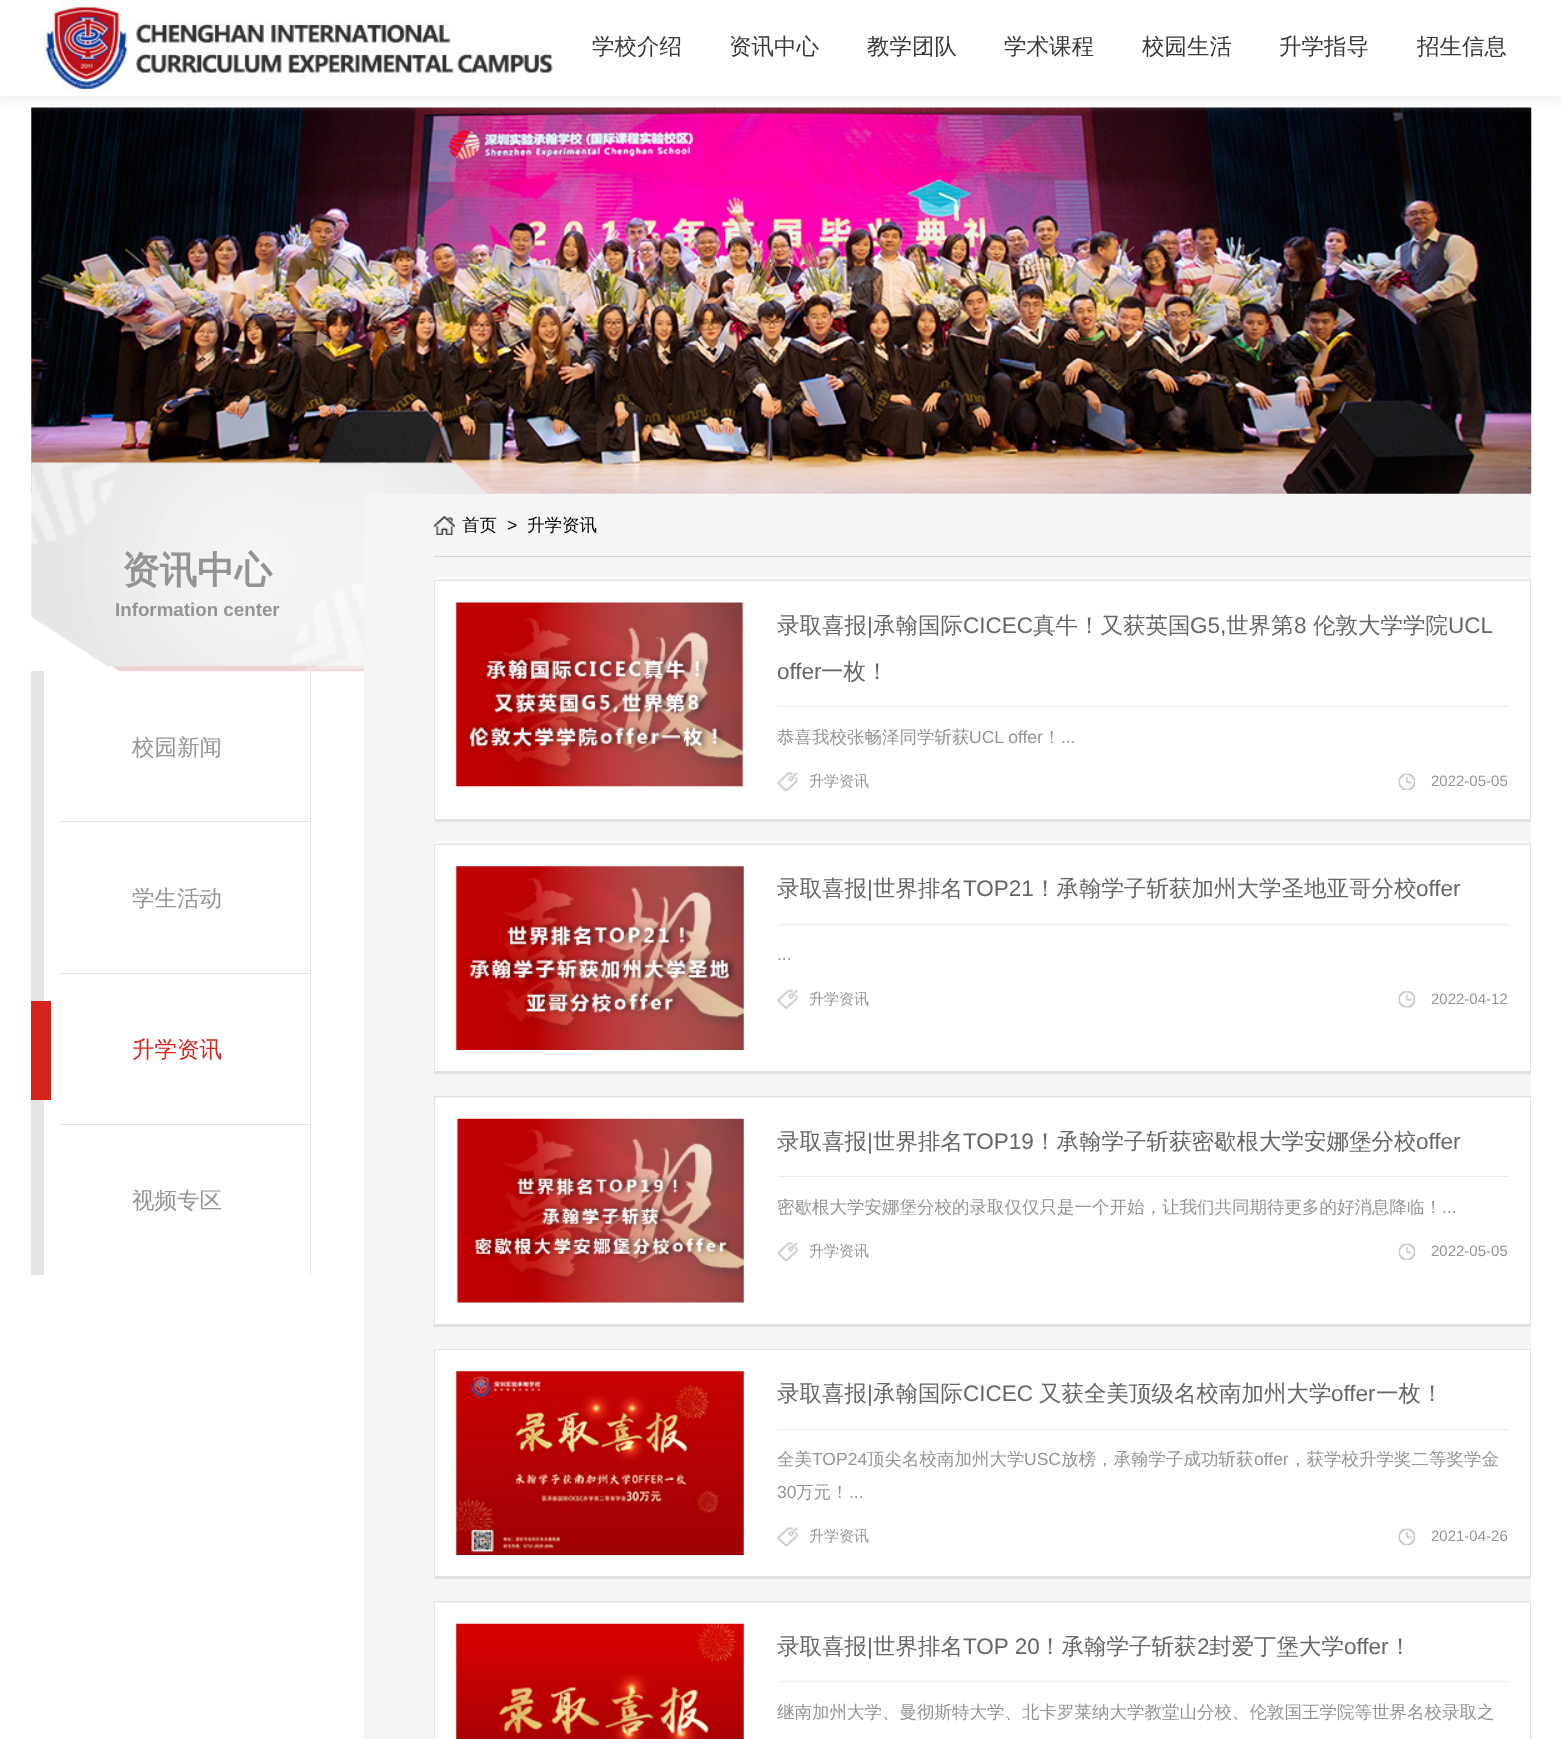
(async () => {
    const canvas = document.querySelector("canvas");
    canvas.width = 1561;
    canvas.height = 1739;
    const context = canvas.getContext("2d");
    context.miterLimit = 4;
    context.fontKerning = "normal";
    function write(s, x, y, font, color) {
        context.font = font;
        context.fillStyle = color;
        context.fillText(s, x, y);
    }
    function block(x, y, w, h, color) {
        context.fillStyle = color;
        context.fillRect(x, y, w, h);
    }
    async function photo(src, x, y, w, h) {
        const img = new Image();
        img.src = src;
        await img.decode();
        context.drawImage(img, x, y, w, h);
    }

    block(0, 0, 1561, 1739, "rgb(255, 255, 255)");
    await photo("media/2.png", 31, 107, 1501, 387);
    context.save();
    context.beginPath();
    context.rect(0, 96, 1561, 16);
    context.clip();
    context.fillStyle = "rgb(238, 238, 238)";
    context.filter = "blur(6px)";
    context.beginPath();
    context.rect(-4, -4, 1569, 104);
    context.fill();
    context.filter = "none";
    context.restore();
    await photo("media/1.png", 41, 0, 518, 90);
    write("学校介绍", 592, 54, "500 22.5px WenQuanYi Zen Hei", "rgb(57, 57, 57)");
    write("资讯中心", 729, 54, "500 22.5px WenQuanYi Zen Hei", "rgb(57, 57, 57)");
    write("教学团队", 867, 54, "500 22.5px WenQuanYi Zen Hei", "rgb(57, 57, 57)");
    write("学术课程", 1004, 54, "500 22.5px WenQuanYi Zen Hei", "rgb(57, 57, 57)");
    write("校园生活", 1142, 54, "500 22.5px WenQuanYi Zen Hei", "rgb(57, 57, 57)");
    write("升学指导", 1279, 54, "500 22.5px WenQuanYi Zen Hei", "rgb(57, 57, 57)");
    write("招生信息", 1417, 54, "500 22.5px WenQuanYi Zen Hei", "rgb(57, 57, 57)");
    await photo("media/3.png", 31, 462, 468, 210);
    write("资讯中心", 122, 583, "bold 37.5px WenQuanYi Zen Hei", "rgb(148, 148, 148)");
    write("Information center", 115, 616, "bold 18.75px Liberation Sans", "rgb(148, 148, 148)");
    block(310, 671, 1, 604, "rgb(228, 228, 228)");
    block(31, 671, 13, 604, "rgb(228, 228, 228)");
    block(59, 821, 251, 1, "rgb(223, 224, 225)");
    write("校园新闻", 132, 755, "500 22.5px WenQuanYi Zen Hei", "rgb(148, 148, 148)");
    block(59, 973, 251, 1, "rgb(223, 224, 225)");
    write("学生活动", 132, 906, "500 22.5px WenQuanYi Zen Hei", "rgb(148, 148, 148)");
    block(59, 1124, 251, 1, "rgb(223, 224, 225)");
    block(31, 1001, 20, 99, "rgb(214, 36, 29)");
    write("升学资讯", 132, 1057, "500 22.5px WenQuanYi Zen Hei", "rgb(214, 36, 29)");
    write("视频专区", 132, 1208, "500 22.5px WenQuanYi Zen Hei", "rgb(148, 148, 148)");
    block(364, 494, 1167, 1245, "rgb(245, 245, 245)");
    await photo("media/4.png", 433, 516, 22, 19);
    block(434, 556, 1097, 1, "rgb(212, 213, 213)");
    write("首页", 462, 531, "500 17.5px WenQuanYi Zen Hei", "rgb(0, 0, 0)");
    write(">", 507, 531, "17.5px Liberation Sans", "rgb(0, 0, 0)");
    write("升学资讯", 527, 531, "500 17.5px WenQuanYi Zen Hei", "rgb(0, 0, 0)");
    block(435, 581, 1095, 238, "rgb(255, 255, 255)");
    block(434, 580, 1097, 1, "rgb(226, 226, 226)");
    block(1530, 580, 1, 241, "rgb(226, 226, 226)");
    block(434, 819, 1097, 3, "rgb(226, 226, 226)");
    block(434, 580, 1, 241, "rgb(226, 226, 226)");
    await photo("media/5.png", 456, 602, 288, 185);
    block(778, 706, 731, 1, "rgb(235, 235, 235)");
    write("录取喜报", 777, 633, "500 22.5px WenQuanYi Zen Hei", "rgb(102, 102, 102)");
    write("|", 867, 633, "22.5px Liberation Sans", "rgb(102, 102, 102)");
    write("承翰国际", 873, 633, "500 22.5px WenQuanYi Zen Hei", "rgb(102, 102, 102)");
    write("CICEC", 963, 633, "22.5px Liberation Sans", "rgb(102, 102, 102)");
    write("真牛！又获英国", 1033, 633, "500 22.5px WenQuanYi Zen Hei", "rgb(102, 102, 102)");
    write("G5,", 1190, 633, "22.5px Liberation Sans", "rgb(102, 102, 102)");
    write("世界第", 1226, 633, "500 22.5px WenQuanYi Zen Hei", "rgb(102, 102, 102)");
    write("8", 1294, 633, "22.5px Liberation Sans", "rgb(102, 102, 102)");
    write("伦敦大学学院", 1313, 633, "500 22.5px WenQuanYi Zen Hei", "rgb(102, 102, 102)");
    write("UCL", 1448, 633, "22.5px Liberation Sans", "rgb(102, 102, 102)");
    write("offer", 777, 679, "22.5px Liberation Sans", "rgb(102, 102, 102)");
    write("一枚！", 821, 679, "500 22.5px WenQuanYi Zen Hei", "rgb(102, 102, 102)");
    write("恭喜我校张畅泽同学斩获", 777, 743, "500 17.5px WenQuanYi Zen Hei", "rgb(148, 148, 148)");
    write("UCL offer", 969, 743, "17.5px Liberation Sans", "rgb(148, 148, 148)");
    write("！", 1043, 743, "500 17.5px WenQuanYi Zen Hei", "rgb(148, 148, 148)");
    write("...", 1061, 743, "17.5px Liberation Sans", "rgb(148, 148, 148)");
    await photo("media/6.png", 777, 772, 21, 20);
    write("升学资讯", 809, 786, "500 15px WenQuanYi Zen Hei", "rgb(148, 148, 148)");
    await photo("media/7.png", 1398, 773, 17, 17);
    write("2022-05-05", 1431, 786, "15px Liberation Sans", "rgb(148, 148, 148)");
    block(435, 845, 1095, 226, "rgb(255, 255, 255)");
    block(434, 844, 1097, 1, "rgb(226, 226, 226)");
    block(1530, 844, 1, 230, "rgb(226, 226, 226)");
    block(434, 1071, 1097, 3, "rgb(226, 226, 226)");
    block(434, 844, 1, 230, "rgb(226, 226, 226)");
    await photo("media/8.png", 456, 866, 288, 184);
    block(778, 924, 731, 1, "rgb(235, 235, 235)");
    write("录取喜报", 777, 896, "500 22.5px WenQuanYi Zen Hei", "rgb(102, 102, 102)");
    write("|", 867, 896, "22.5px Liberation Sans", "rgb(102, 102, 102)");
    write("世界排名", 873, 896, "500 22.5px WenQuanYi Zen Hei", "rgb(102, 102, 102)");
    write("TOP21", 963, 896, "22.5px Liberation Sans", "rgb(102, 102, 102)");
    write("！承翰学子斩获加州大学圣地亚哥分校", 1034, 896, "500 22.5px WenQuanYi Zen Hei", "rgb(102, 102, 102)");
    write("offer", 1416, 896, "22.5px Liberation Sans", "rgb(102, 102, 102)");
    write("...", 777, 960, "17.5px Liberation Sans", "rgb(148, 148, 148)");
    await photo("media/9.png", 777, 990, 21, 19);
    write("升学资讯", 809, 1004, "500 15px WenQuanYi Zen Hei", "rgb(148, 148, 148)");
    await photo("media/10.png", 1398, 991, 17, 17);
    write("2022-04-12", 1431, 1004, "15px Liberation Sans", "rgb(148, 148, 148)");
    block(435, 1098, 1095, 226, "rgb(255, 255, 255)");
    block(434, 1096, 1097, 1, "rgb(226, 226, 226)");
    block(1530, 1096, 1, 230, "rgb(226, 226, 226)");
    block(434, 1324, 1097, 3, "rgb(226, 226, 226)");
    block(434, 1096, 1, 230, "rgb(226, 226, 226)");
    await photo("media/11.png", 456, 1118, 288, 185);
    block(778, 1176, 731, 1, "rgb(235, 235, 235)");
    write("录取喜报", 777, 1149, "500 22.5px WenQuanYi Zen Hei", "rgb(102, 102, 102)");
    write("|", 867, 1149, "22.5px Liberation Sans", "rgb(102, 102, 102)");
    write("世界排名", 873, 1149, "500 22.5px WenQuanYi Zen Hei", "rgb(102, 102, 102)");
    write("TOP19", 963, 1149, "22.5px Liberation Sans", "rgb(102, 102, 102)");
    write("！承翰学子斩获密歇根大学安娜堡分校", 1034, 1149, "500 22.5px WenQuanYi Zen Hei", "rgb(102, 102, 102)");
    write("offer", 1416, 1149, "22.5px Liberation Sans", "rgb(102, 102, 102)");
    write("密歇根大学安娜堡分校的录取仅仅只是一个开始，让我们共同期待更多的好消息降临！", 777, 1213, "500 17.5px WenQuanYi Zen Hei", "rgb(148, 148, 148)");
    write("...", 1442, 1213, "17.5px Liberation Sans", "rgb(148, 148, 148)");
    await photo("media/6.png", 777, 1242, 21, 20);
    write("升学资讯", 809, 1256, "500 15px WenQuanYi Zen Hei", "rgb(148, 148, 148)");
    await photo("media/7.png", 1398, 1243, 17, 17);
    write("2022-05-05", 1431, 1256, "15px Liberation Sans", "rgb(148, 148, 148)");
    block(435, 1350, 1095, 226, "rgb(255, 255, 255)");
    block(434, 1349, 1097, 1, "rgb(226, 226, 226)");
    block(1530, 1349, 1, 230, "rgb(226, 226, 226)");
    block(434, 1576, 1097, 3, "rgb(226, 226, 226)");
    block(434, 1349, 1, 230, "rgb(226, 226, 226)");
    await photo("media/12.png", 456, 1371, 288, 184);
    block(778, 1429, 731, 1, "rgb(235, 235, 235)");
    write("录取喜报", 777, 1401, "500 22.5px WenQuanYi Zen Hei", "rgb(102, 102, 102)");
    write("|", 867, 1401, "22.5px Liberation Sans", "rgb(102, 102, 102)");
    write("承翰国际", 873, 1401, "500 22.5px WenQuanYi Zen Hei", "rgb(102, 102, 102)");
    write("CICEC", 963, 1401, "22.5px Liberation Sans", "rgb(102, 102, 102)");
    write("又获全美顶级名校南加州大学", 1039, 1401, "500 22.5px WenQuanYi Zen Hei", "rgb(102, 102, 102)");
    write("offer", 1331, 1401, "22.5px Liberation Sans", "rgb(102, 102, 102)");
    write("一枚！", 1376, 1401, "500 22.5px WenQuanYi Zen Hei", "rgb(102, 102, 102)");
    write("全美", 777, 1465, "500 17.5px WenQuanYi Zen Hei", "rgb(148, 148, 148)");
    write("TOP24", 812, 1465, "17.5px Liberation Sans", "rgb(148, 148, 148)");
    write("顶尖名校南加州大学", 867, 1465, "500 17.5px WenQuanYi Zen Hei", "rgb(148, 148, 148)");
    write("USC", 1024, 1465, "17.5px Liberation Sans", "rgb(148, 148, 148)");
    write("放榜，承翰学子成功斩获", 1061, 1465, "500 17.5px WenQuanYi Zen Hei", "rgb(148, 148, 148)");
    write("offer", 1254, 1465, "17.5px Liberation Sans", "rgb(148, 148, 148)");
    write("，获学校升学奖二等奖学金", 1289, 1465, "500 17.5px WenQuanYi Zen Hei", "rgb(148, 148, 148)");
    write("30", 777, 1498, "17.5px Liberation Sans", "rgb(148, 148, 148)");
    write("万元！", 796, 1498, "500 17.5px WenQuanYi Zen Hei", "rgb(148, 148, 148)");
    write("...", 849, 1498, "17.5px Liberation Sans", "rgb(148, 148, 148)");
    await photo("media/6.png", 777, 1527, 21, 20);
    write("升学资讯", 809, 1541, "500 15px WenQuanYi Zen Hei", "rgb(148, 148, 148)");
    await photo("media/7.png", 1398, 1528, 17, 17);
    write("2021-04-26", 1431, 1541, "15px Liberation Sans", "rgb(148, 148, 148)");
    block(435, 1603, 1095, 136, "rgb(255, 255, 255)");
    block(434, 1601, 1097, 1, "rgb(226, 226, 226)");
    block(1530, 1601, 1, 138, "rgb(226, 226, 226)");
    block(434, 1601, 1, 138, "rgb(226, 226, 226)");
    await photo("media/13.png", 456, 1623, 288, 116);
    block(778, 1681, 731, 1, "rgb(235, 235, 235)");
    write("录取喜报", 777, 1654, "500 22.5px WenQuanYi Zen Hei", "rgb(102, 102, 102)");
    write("|", 867, 1654, "22.5px Liberation Sans", "rgb(102, 102, 102)");
    write("世界排名", 873, 1654, "500 22.5px WenQuanYi Zen Hei", "rgb(102, 102, 102)");
    write("TOP 20", 963, 1654, "22.5px Liberation Sans", "rgb(102, 102, 102)");
    write("！承翰学子斩获", 1039, 1654, "500 22.5px WenQuanYi Zen Hei", "rgb(102, 102, 102)");
    write("2", 1197, 1654, "22.5px Liberation Sans", "rgb(102, 102, 102)");
    write("封爱丁堡大学", 1209, 1654, "500 22.5px WenQuanYi Zen Hei", "rgb(102, 102, 102)");
    write("offer", 1344, 1654, "22.5px Liberation Sans", "rgb(102, 102, 102)");
    write("！", 1389, 1654, "500 22.5px WenQuanYi Zen Hei", "rgb(102, 102, 102)");
    write("继南加州大学、曼彻斯特大学、北卡罗莱纳大学教堂山分校、伦敦国王学院等世界名校录取之", 777, 1718, "500 17.5px WenQuanYi Zen Hei", "rgb(148, 148, 148)");
})();
